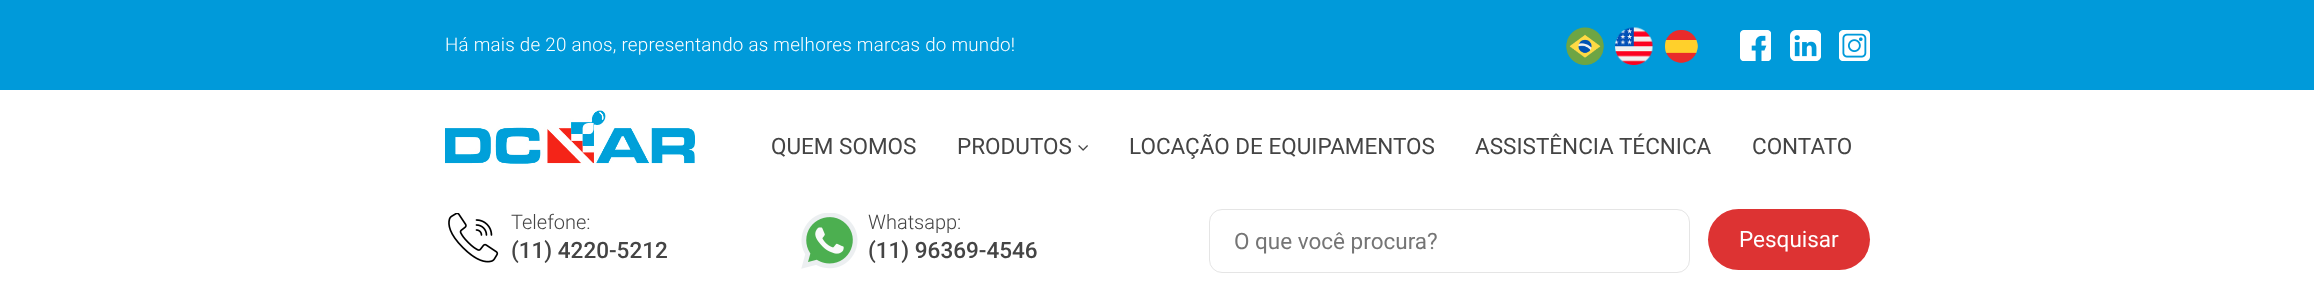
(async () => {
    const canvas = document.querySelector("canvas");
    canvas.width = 2314;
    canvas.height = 303;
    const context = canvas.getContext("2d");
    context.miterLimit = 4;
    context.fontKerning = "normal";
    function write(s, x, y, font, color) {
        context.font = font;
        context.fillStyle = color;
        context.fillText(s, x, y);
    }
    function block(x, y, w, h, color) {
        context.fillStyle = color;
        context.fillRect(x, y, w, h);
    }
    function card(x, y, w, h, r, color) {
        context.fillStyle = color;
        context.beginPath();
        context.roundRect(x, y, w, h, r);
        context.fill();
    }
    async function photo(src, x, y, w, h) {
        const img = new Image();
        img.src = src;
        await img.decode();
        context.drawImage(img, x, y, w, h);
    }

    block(0, 0, 2314, 303, "rgb(0, 154, 218)");
    context.letterSpacing = "0.25px";
    write("Há mais de 20 anos, representando as melhores marcas do mundo!", 445, 51, "300 18.75px Roboto", "rgb(255, 255, 255)");
    await photo("media/1.png", 1566, 27, 38, 38);
    await photo("media/2.png", 1615, 27, 38, 38);
    await photo("media/3.png", 1665, 30, 33, 33);
    await photo("media/4.png", 1740, 30, 31, 31);
    await photo("media/5.png", 1790, 30, 31, 31);
    await photo("media/6.png", 1839, 30, 31, 31);
    block(0, 90, 2314, 213, "rgb(255, 255, 255)");
    await photo("media/7.png", 445, 110, 250, 54);
    context.letterSpacing = "0px";
    write("QUEM SOMOS", 771, 154, "22.5px Roboto", "rgb(68, 68, 68)");
    write("PRODUTOS", 957, 154, "22.5px Roboto", "rgb(68, 68, 68)");
    await photo("media/8.png", 1078, 145, 10, 6);
    write("LOCAÇÃO DE EQUIPAMENTOS", 1129, 154, "22.5px Roboto", "rgb(68, 68, 68)");
    write("ASSISTÊNCIA TÉCNICA", 1475, 154, "22.5px Roboto", "rgb(68, 68, 68)");
    write("CONTATO", 1752, 154, "22.5px Roboto", "rgb(68, 68, 68)");
    await photo("media/9.png", 448, 213, 51, 50);
    write("Telefone:", 511, 229, "300 20px Roboto", "rgb(68, 68, 68)");
    write("(11) 4220-5212", 511, 258, "500 22.5px Roboto", "rgb(68, 68, 68)");
    await photo("media/10.png", 801, 213, 57, 56);
    write("Whatsapp:", 868, 229, "300 20px Roboto", "rgb(68, 68, 68)");
    write("(11) 96369-4546", 868, 258, "500 22.5px Roboto", "rgb(68, 68, 68)");
    context.beginPath();
    context.roundRect(1209.5, 209.5, 480, 63, 12.5);
    context.strokeStyle = "rgb(229, 229, 229)";
    context.stroke();
    write("O que você procura?", 1234, 249, "22.5px Roboto", "rgb(117, 117, 117)");
    card(1708, 209, 162, 61, 30.5, "rgb(221, 51, 51)");
    write("Pesquisar", 1739, 247, "22.5px Roboto", "rgb(255, 255, 255)");
})();
